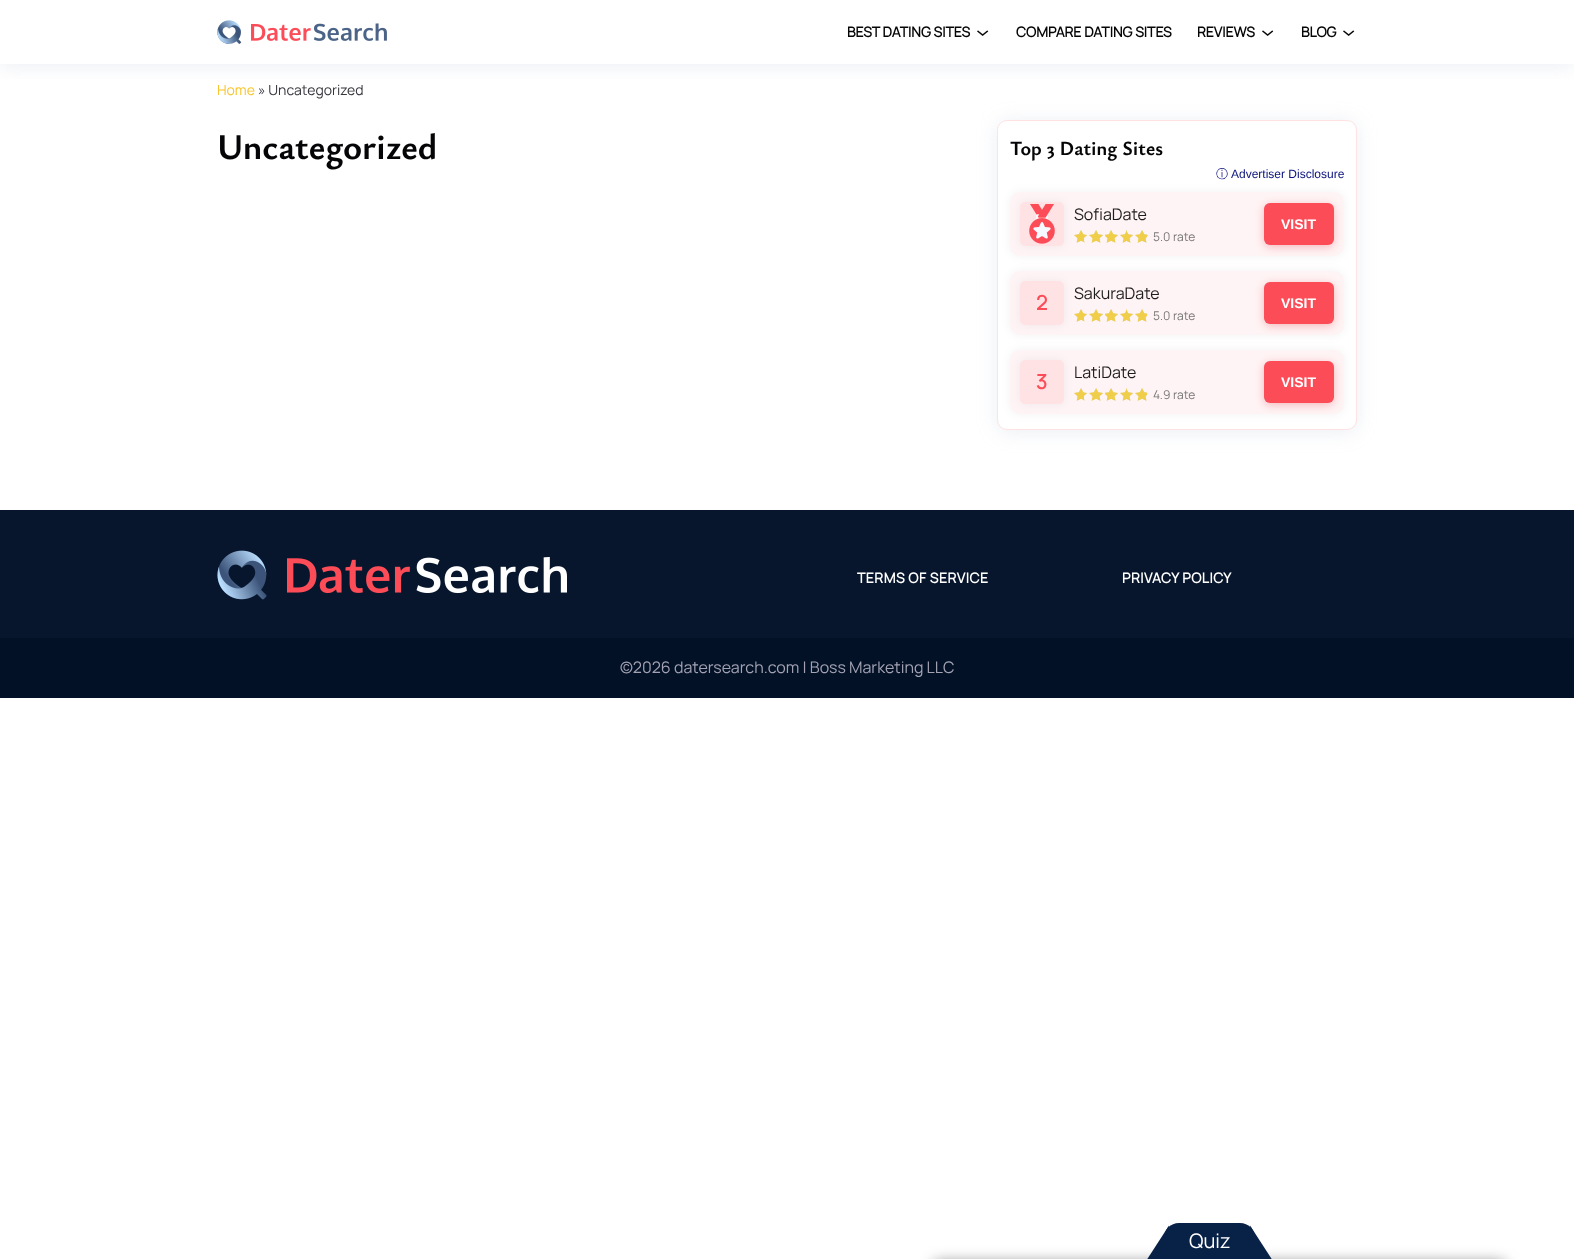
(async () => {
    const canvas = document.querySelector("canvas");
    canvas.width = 1574;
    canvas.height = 1259;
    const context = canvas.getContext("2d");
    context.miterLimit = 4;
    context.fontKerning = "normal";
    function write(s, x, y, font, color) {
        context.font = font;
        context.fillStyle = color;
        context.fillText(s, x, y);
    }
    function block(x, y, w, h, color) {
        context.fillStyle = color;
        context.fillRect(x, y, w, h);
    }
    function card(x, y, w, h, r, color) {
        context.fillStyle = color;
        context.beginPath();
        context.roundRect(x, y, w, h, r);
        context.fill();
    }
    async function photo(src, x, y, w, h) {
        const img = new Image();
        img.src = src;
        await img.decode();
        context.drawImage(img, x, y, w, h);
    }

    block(0, 0, 1574, 1259, "rgb(255, 255, 255)");
    context.save();
    context.beginPath();
    context.rect(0, 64, 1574, 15);
    context.clip();
    context.fillStyle = "rgba(157, 170, 196, 0.2)";
    context.filter = "blur(10px)";
    context.beginPath();
    context.rect(0, 2, 1574, 64);
    context.fill();
    context.filter = "none";
    context.restore();
    await photo("media/1.png", 217, 20, 170, 24);
    write("BEST DATING SITES", 847, 37, "bold 14px Manrope", "rgb(5, 5, 7)");
    await photo("media/2.png", 977, 30, 12, 6);
    write("COMPARE DATING SITES", 1016, 37, "bold 14px Manrope", "rgb(5, 5, 7)");
    write("REVIEWS", 1197, 37, "bold 14px Manrope", "rgb(5, 5, 7)");
    await photo("media/2.png", 1262, 30, 12, 6);
    write("BLOG", 1301, 37, "bold 14px Manrope", "rgb(5, 5, 7)");
    await photo("media/2.png", 1343, 30, 12, 6);
    write("Home", 217, 95, "14px Manrope", "rgb(248, 197, 45)");
    write("» Uncategorized", 258, 95, "14px Manrope", "rgb(53, 53, 61)");
    write("Uncategorized", 217, 159, "bold 36px Ysabeau", "rgb(5, 5, 7)");
    context.fillStyle = "rgba(157, 170, 196, 0.2)";
    context.filter = "blur(10px)";
    context.beginPath();
    context.roundRect(997, 122, 360, 310, 10);
    context.fill();
    context.filter = "none";
    context.fillStyle = "rgb(255, 255, 255)";
    context.beginPath();
    context.roundRect(997.5, 120.5, 359, 309, 9.5);
    context.fill();
    context.strokeStyle = "rgb(255, 226, 228)";
    context.stroke();
    write("Top 3 Dating Sites", 1010, 155, "bold 20px Ysabeau", "rgb(5, 5, 7)");
    context.fillStyle = "rgba(18, 18, 18, 0.05)";
    context.filter = "blur(5px)";
    context.beginPath();
    context.roundRect(1010, 192, 334, 64, 10);
    context.fill();
    context.filter = "none";
    write("ⓘ", 1216, 178, "500 12px WenQuanYi Zen Hei", "rgb(12, 18, 124)");
    write("Advertiser Disclosure", 1231, 178, "12px Liberation Sans", "rgb(12, 18, 124)");
    card(1010, 192, 334, 64, 10, "rgb(255, 244, 245)");
    context.fillStyle = "rgba(18, 18, 18, 0.05)";
    context.filter = "blur(5px)";
    context.beginPath();
    context.roundRect(1020, 202, 44, 44, 5);
    context.fill();
    context.filter = "none";
    card(1020, 202, 44, 44, 5, "rgb(255, 226, 228)");
    await photo("media/3.png", 1029, 204, 26, 40);
    write("SofiaDate", 1074, 220, "16px Manrope", "rgb(29, 29, 27)");
    await photo("media/4.png", 1074, 230, 74, 13);
    await photo("media/5.png", 1074, 230, 74, 13);
    write("5.0", 1153, 241, "12px Manrope", "rgb(119, 119, 119)");
    write("rate", 1173, 241, "12px Manrope", "rgb(119, 119, 119)");
    context.fillStyle = "rgba(209, 0, 14, 0.25)";
    context.filter = "blur(5px)";
    context.beginPath();
    context.roundRect(1264, 205, 70, 42, 6);
    context.fill();
    context.filter = "none";
    card(1264, 203, 70, 42, 6, "rgb(252, 76, 88)");
    write("VISIT", 1281, 229, "bold 14px Liberation Sans", "rgb(255, 255, 255)");
    context.fillStyle = "rgba(18, 18, 18, 0.05)";
    context.filter = "blur(5px)";
    context.beginPath();
    context.roundRect(1010, 271, 334, 64, 10);
    context.fill();
    context.filter = "none";
    card(1010, 271, 334, 64, 10, "rgb(255, 244, 245)");
    context.fillStyle = "rgba(18, 18, 18, 0.05)";
    context.filter = "blur(5px)";
    context.beginPath();
    context.roundRect(1020, 281, 44, 44, 5);
    context.fill();
    context.filter = "none";
    card(1020, 281, 44, 44, 5, "rgb(255, 226, 228)");
    write("2", 1036, 310, "bold 20px Manrope", "rgb(252, 76, 88)");
    write("SakuraDate", 1074, 299, "16px Manrope", "rgb(29, 29, 27)");
    await photo("media/4.png", 1074, 309, 74, 13);
    await photo("media/6.png", 1074, 309, 73, 13);
    write("5.0", 1153, 320, "12px Manrope", "rgb(119, 119, 119)");
    write("rate", 1173, 320, "12px Manrope", "rgb(119, 119, 119)");
    context.fillStyle = "rgba(209, 0, 14, 0.25)";
    context.filter = "blur(5px)";
    context.beginPath();
    context.roundRect(1264, 284, 70, 42, 6);
    context.fill();
    context.filter = "none";
    card(1264, 282, 70, 42, 6, "rgb(252, 76, 88)");
    write("VISIT", 1281, 308, "bold 14px Liberation Sans", "rgb(255, 255, 255)");
    context.fillStyle = "rgba(18, 18, 18, 0.05)";
    context.filter = "blur(5px)";
    context.beginPath();
    context.roundRect(1010, 350, 334, 64, 10);
    context.fill();
    context.filter = "none";
    card(1010, 350, 334, 64, 10, "rgb(255, 244, 245)");
    context.fillStyle = "rgba(18, 18, 18, 0.05)";
    context.filter = "blur(5px)";
    context.beginPath();
    context.roundRect(1020, 360, 44, 44, 5);
    context.fill();
    context.filter = "none";
    card(1020, 360, 44, 44, 5, "rgb(255, 226, 228)");
    write("3", 1036, 389, "bold 20px Manrope", "rgb(252, 76, 88)");
    write("LatiDate", 1074, 378, "16px Manrope", "rgb(29, 29, 27)");
    await photo("media/4.png", 1074, 388, 74, 13);
    await photo("media/6.png", 1074, 388, 73, 13);
    write("4.9", 1153, 399, "12px Manrope", "rgb(119, 119, 119)");
    write("rate", 1173, 399, "12px Manrope", "rgb(119, 119, 119)");
    context.fillStyle = "rgba(209, 0, 14, 0.25)";
    context.filter = "blur(5px)";
    context.beginPath();
    context.roundRect(1264, 363, 70, 42, 6);
    context.fill();
    context.filter = "none";
    card(1264, 361, 70, 42, 6, "rgb(252, 76, 88)");
    write("VISIT", 1281, 387, "bold 14px Liberation Sans", "rgb(255, 255, 255)");
    block(0, 510, 1574, 128, "rgb(7, 22, 44)");
    await photo("media/7.png", 217, 550, 350, 50);
    context.letterSpacing = "0.5px";
    write("TERMS OF SERVICE", 857, 583, "bold 14px Manrope", "rgb(255, 255, 255)");
    write("PRIVACY POLICY", 1122, 583, "bold 14px Manrope", "rgb(255, 255, 255)");
    block(0, 638, 1574, 60, "rgb(3, 17, 38)");
    context.letterSpacing = "0px";
    write("©2026 datersearch.com | Boss Marketing LLC", 620, 673, "16px Manrope", "rgb(163, 163, 180)");
    context.fillStyle = "rgb(119, 119, 119)";
    context.filter = "blur(7.5px)";
    context.beginPath();
    context.roundRect(934, 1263, 571, 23, 4);
    context.fill();
    context.filter = "none";
    context.fillStyle = "rgb(8, 33, 71)";
    context.beginPath();
    context.moveTo(1179, 1223);
    context.lineTo(1240, 1223);
    context.bezierCurveTo(1248.5, 1223, 1255, 1229.5, 1255, 1238);
    context.lineTo(1255, 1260);
    context.lineTo(1164, 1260);
    context.lineTo(1164, 1238);
    context.bezierCurveTo(1164, 1229.5, 1170.5, 1223, 1179, 1223);
    context.closePath();
    context.fill();
    context.beginPath();
    context.moveTo(1169, 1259.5);
    context.lineTo(1147, 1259.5);
    context.lineTo(1169, 1225.5);
    context.closePath();
    context.fill();
    write("Quiz", 1189, 1248, "20px Manrope", "rgb(255, 255, 255)");
    context.fillStyle = "rgb(8, 33, 71)";
    context.beginPath();
    context.moveTo(1272, 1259.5);
    context.lineTo(1250, 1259.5);
    context.lineTo(1250, 1225.5);
    context.closePath();
    context.fill();
})();
